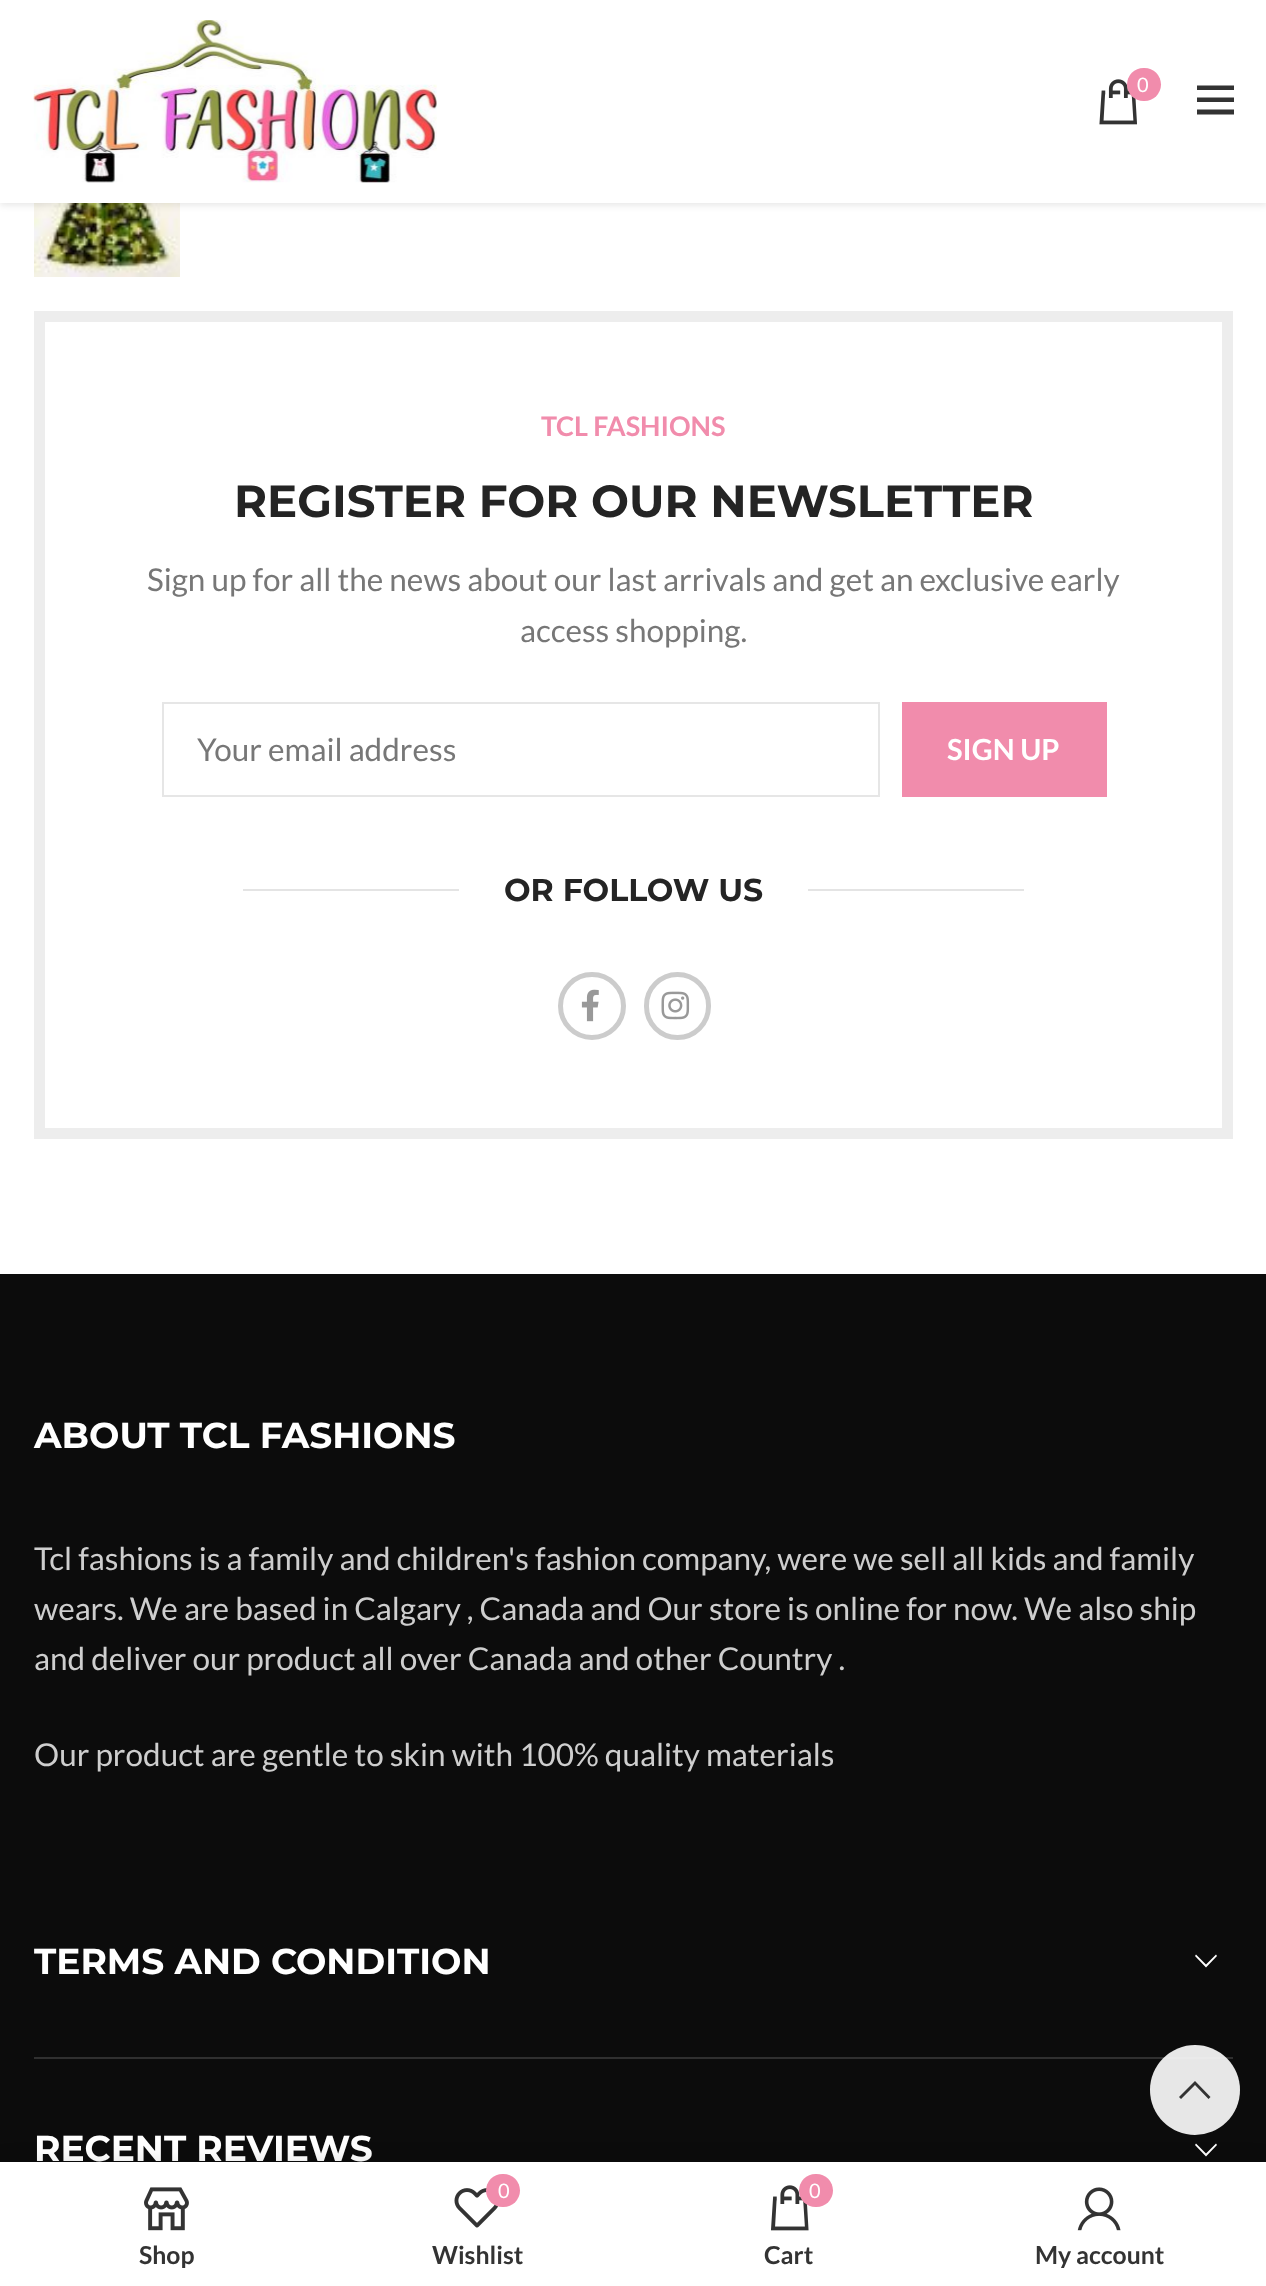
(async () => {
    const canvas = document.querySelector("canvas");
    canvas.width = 1266;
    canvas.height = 2286;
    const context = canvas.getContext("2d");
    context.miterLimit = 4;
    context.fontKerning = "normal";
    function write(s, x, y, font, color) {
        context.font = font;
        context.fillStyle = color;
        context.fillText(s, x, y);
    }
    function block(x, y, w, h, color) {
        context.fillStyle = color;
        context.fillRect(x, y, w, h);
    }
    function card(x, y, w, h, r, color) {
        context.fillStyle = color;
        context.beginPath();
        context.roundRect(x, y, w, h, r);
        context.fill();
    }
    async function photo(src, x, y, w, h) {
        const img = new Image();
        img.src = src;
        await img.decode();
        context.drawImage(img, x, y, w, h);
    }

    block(0, 0, 1266, 2286, "rgb(255, 255, 255)");
    await photo("media/3.png", 34, 203, 146, 74);
    context.fillStyle = "rgba(0, 0, 0, 0.1)";
    context.filter = "blur(3.5px)";
    context.beginPath();
    context.rect(0, 2, 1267, 203);
    context.fill();
    context.filter = "none";
    block(0, 0, 1266, 203, "rgb(255, 255, 255)");
    await photo("media/1.png", 33, 20, 404, 163);
    await photo("media/2.png", 1099, 79, 38, 46);
    card(1127, 68, 34, 33, 16.5, "rgb(241, 140, 172)");
    write("0", 1137, 92, "20px Lato", "rgb(255, 255, 255)");
    context.fillStyle = "rgb(51, 51, 51)";
    context.beginPath();
    context.moveTo(1197, 85.5);
    context.lineTo(1234, 85.5);
    context.lineTo(1234, 90);
    context.lineTo(1197, 90);
    context.closePath();
    context.moveTo(1197, 97.5);
    context.lineTo(1234, 97.5);
    context.lineTo(1234, 102);
    context.lineTo(1197, 102);
    context.closePath();
    context.moveTo(1197, 109.5);
    context.lineTo(1234, 109.5);
    context.lineTo(1234, 114.5);
    context.lineTo(1197, 114.5);
    context.closePath();
    context.fill();
    context.strokeStyle = "rgb(237, 237, 237)";
    context.lineWidth = 11;
    context.strokeRect(39.5, 316.5, 1188, 817);
    write("TCL FASHIONS", 541, 436, "bold 27px Lato", "rgb(241, 140, 172)");
    write("REGISTER FOR OUR NEWSLETTER", 234, 517, "bold 45px Montserrat", "rgb(36, 36, 36)");
    write("Sign up for all the news about our last arrivals and get an exclusive early", 147, 591, "31.5px Lato", "rgb(119, 119, 119)");
    write("access shopping.", 520, 642, "31.5px Lato", "rgb(119, 119, 119)");
    context.strokeStyle = "rgb(230, 230, 230)";
    context.lineWidth = 2;
    context.strokeRect(163, 703, 716, 93);
    write("Your email address", 197, 761, "31.5px Lato", "rgb(119, 119, 119)");
    block(902, 702, 205, 95, "rgb(241, 140, 172)");
    write("SIGN UP", 947, 760, "bold 29px Lato", "rgb(255, 255, 255)");
    block(243, 889, 216, 2, "rgb(228, 228, 228)");
    write("OR FOLLOW US", 504, 901, "bold 31.5px Montserrat", "rgb(36, 36, 36)");
    block(808, 889, 216, 2, "rgb(228, 228, 228)");
    context.beginPath();
    context.arc(592, 1006, 31.5, 0, Math.PI * 2);
    context.strokeStyle = "rgb(204, 204, 204)";
    context.lineWidth = 5;
    context.stroke();
    await photo("media/4.png", 581, 989, 18, 33);
    context.beginPath();
    context.roundRect(646.5, 974.5, 62, 63, 31);
    context.stroke();
    await photo("media/5.png", 661, 991, 29, 29);
    block(0, 1274, 1266, 888, "rgb(12, 12, 12)");
    write("ABOUT TCL FASHIONS", 34, 1448, "bold 36px Montserrat", "rgb(255, 255, 255)");
    write("Tcl fashions is a family and children's fashion company, were we sell all kids and family", 34, 1570, "31.5px Lato", "rgb(206, 206, 206)");
    write("wears. We are based in Calgary , Canada and Our store is online for now. We also ship", 34, 1620, "31.5px Lato", "rgb(206, 206, 206)");
    write("and deliver our product all over Canada and other Country .", 34, 1670, "31.5px Lato", "rgb(206, 206, 206)");
    write("Our product are gentle to skin with 100% quality materials", 34, 1766, "31.5px Lato", "rgb(206, 206, 206)");
    block(34, 2057, 1199, 2, "rgb(48, 48, 48)");
    write("TERMS AND CONDITION", 34, 1974, "bold 36px Montserrat", "rgb(255, 255, 255)");
    context.beginPath();
    context.moveTo(1216, 1954.5);
    context.lineTo(1217, 1956);
    context.lineTo(1206, 1967.5);
    context.lineTo(1195, 1956);
    context.lineTo(1196, 1954.5);
    context.lineTo(1206, 1964.5);
    context.closePath();
    context.fill();
    write("RECENT REVIEWS", 34, 2161, "bold 36px Montserrat", "rgb(255, 255, 255)");
    context.beginPath();
    context.moveTo(1216, 2143.5);
    context.lineTo(1217, 2145);
    context.lineTo(1206, 2156.5);
    context.lineTo(1195, 2145);
    context.lineTo(1196, 2143.5);
    context.lineTo(1206, 2153.5);
    context.closePath();
    context.fill();
    context.fillStyle = "rgba(255, 255, 255, 0.9)";
    context.beginPath();
    context.arc(1195, 2090, 45, 0, Math.PI * 2);
    context.fill();
    context.fillStyle = "rgb(51, 51, 51)";
    context.beginPath();
    context.moveTo(1195, 2081);
    context.lineTo(1210.5, 2097);
    context.lineTo(1208.5, 2099);
    context.lineTo(1195, 2085);
    context.lineTo(1181, 2099);
    context.lineTo(1179, 2097);
    context.closePath();
    context.fill();
    context.fillStyle = "rgba(0, 0, 0, 0.12)";
    context.filter = "blur(10px)";
    context.beginPath();
    context.rect(0, 2162, 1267, 124);
    context.fill();
    context.filter = "none";
    block(0, 2162, 1266, 124, "rgb(255, 255, 255)");
    await photo("media/6.png", 144, 2187, 45, 44);
    context.save();
    context.beginPath();
    context.rect(34, 2239, 265, 29);
    context.clip();
    write("Shop", 139, 2264, "bold 24.75px Lato", "rgb(51, 51, 51)");
    context.restore();
    await photo("media/7.png", 454, 2188, 45, 40);
    card(486, 2174, 34, 33, 16.5, "rgb(241, 140, 172)");
    write("0", 498, 2198, "20px Lato", "rgb(255, 255, 255)");
    write("Wishlist", 432, 2264, "bold 24.75px Lato", "rgb(51, 51, 51)");
    await photo("media/8.png", 771, 2185, 38, 46);
    card(799, 2174, 34, 33, 16.5, "rgb(241, 140, 172)");
    write("0", 809, 2198, "20px Lato", "rgb(255, 255, 255)");
    write("Cart", 764, 2264, "bold 24.75px Lato", "rgb(51, 51, 51)");
    await photo("media/9.png", 1077, 2187, 44, 44);
    context.save();
    context.beginPath();
    context.rect(968, 2239, 265, 29);
    context.clip();
    write("My account", 1035, 2264, "bold 24.75px Lato", "rgb(51, 51, 51)");
    context.restore();
})();
